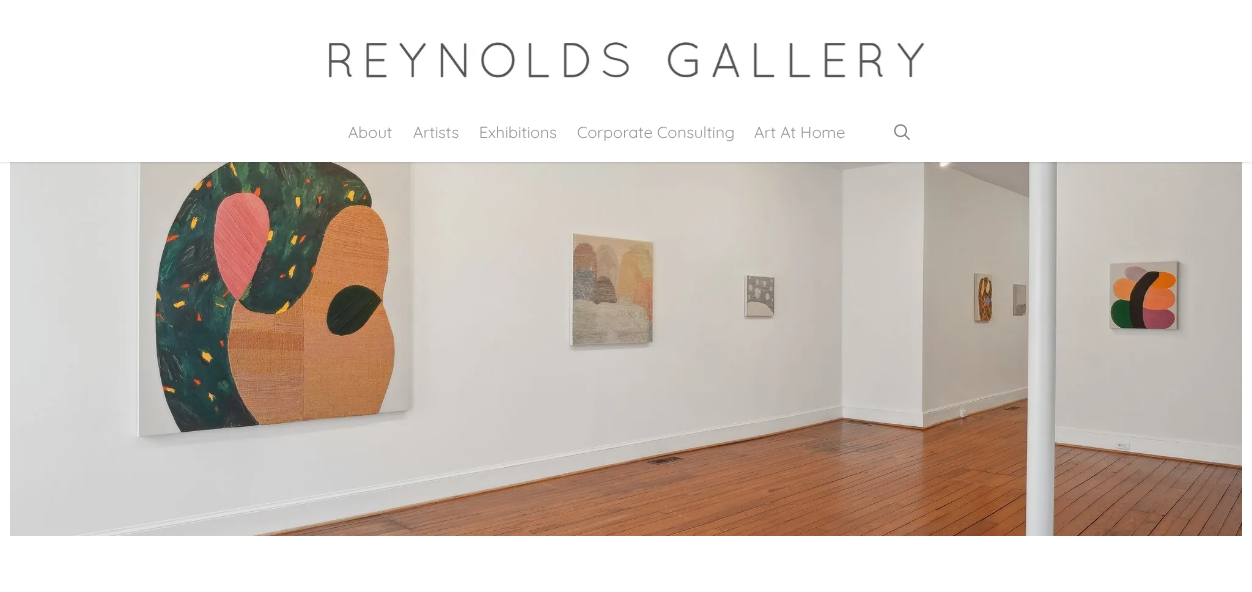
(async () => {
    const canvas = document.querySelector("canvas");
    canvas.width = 1252;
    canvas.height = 592;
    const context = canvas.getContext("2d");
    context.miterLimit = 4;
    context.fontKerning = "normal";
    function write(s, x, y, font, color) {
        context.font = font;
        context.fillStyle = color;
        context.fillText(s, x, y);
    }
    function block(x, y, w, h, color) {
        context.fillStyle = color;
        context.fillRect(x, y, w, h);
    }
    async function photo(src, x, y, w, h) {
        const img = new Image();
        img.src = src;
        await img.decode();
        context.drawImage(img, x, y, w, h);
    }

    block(0, 0, 1252, 592, "rgb(255, 255, 255)");
    await photo("media/3.png", 10, 162, 1232, 374);
    context.fillStyle = "rgba(0, 0, 0, 0.22)";
    context.filter = "blur(1.5px)";
    context.beginPath();
    context.rect(0, 0, 1252, 162);
    context.fill();
    context.filter = "none";
    block(0, 0, 1252, 162, "rgb(255, 255, 255)");
    await photo("media/1.png", 328, 41, 597, 38);
    write("About", 348, 138, "300 16px Quicksand", "rgb(153, 153, 153)");
    write("Artists", 413, 138, "300 16px Quicksand", "rgb(153, 153, 153)");
    write("Exhibitions", 479, 138, "300 16px Quicksand", "rgb(153, 153, 153)");
    write("Corporate Consulting", 577, 138, "300 16px Quicksand", "rgb(153, 153, 153)");
    write("Art At Home", 754, 138, "300 16px Quicksand", "rgb(153, 153, 153)");
    await photo("media/2.png", 894, 124, 16, 16);
})();
